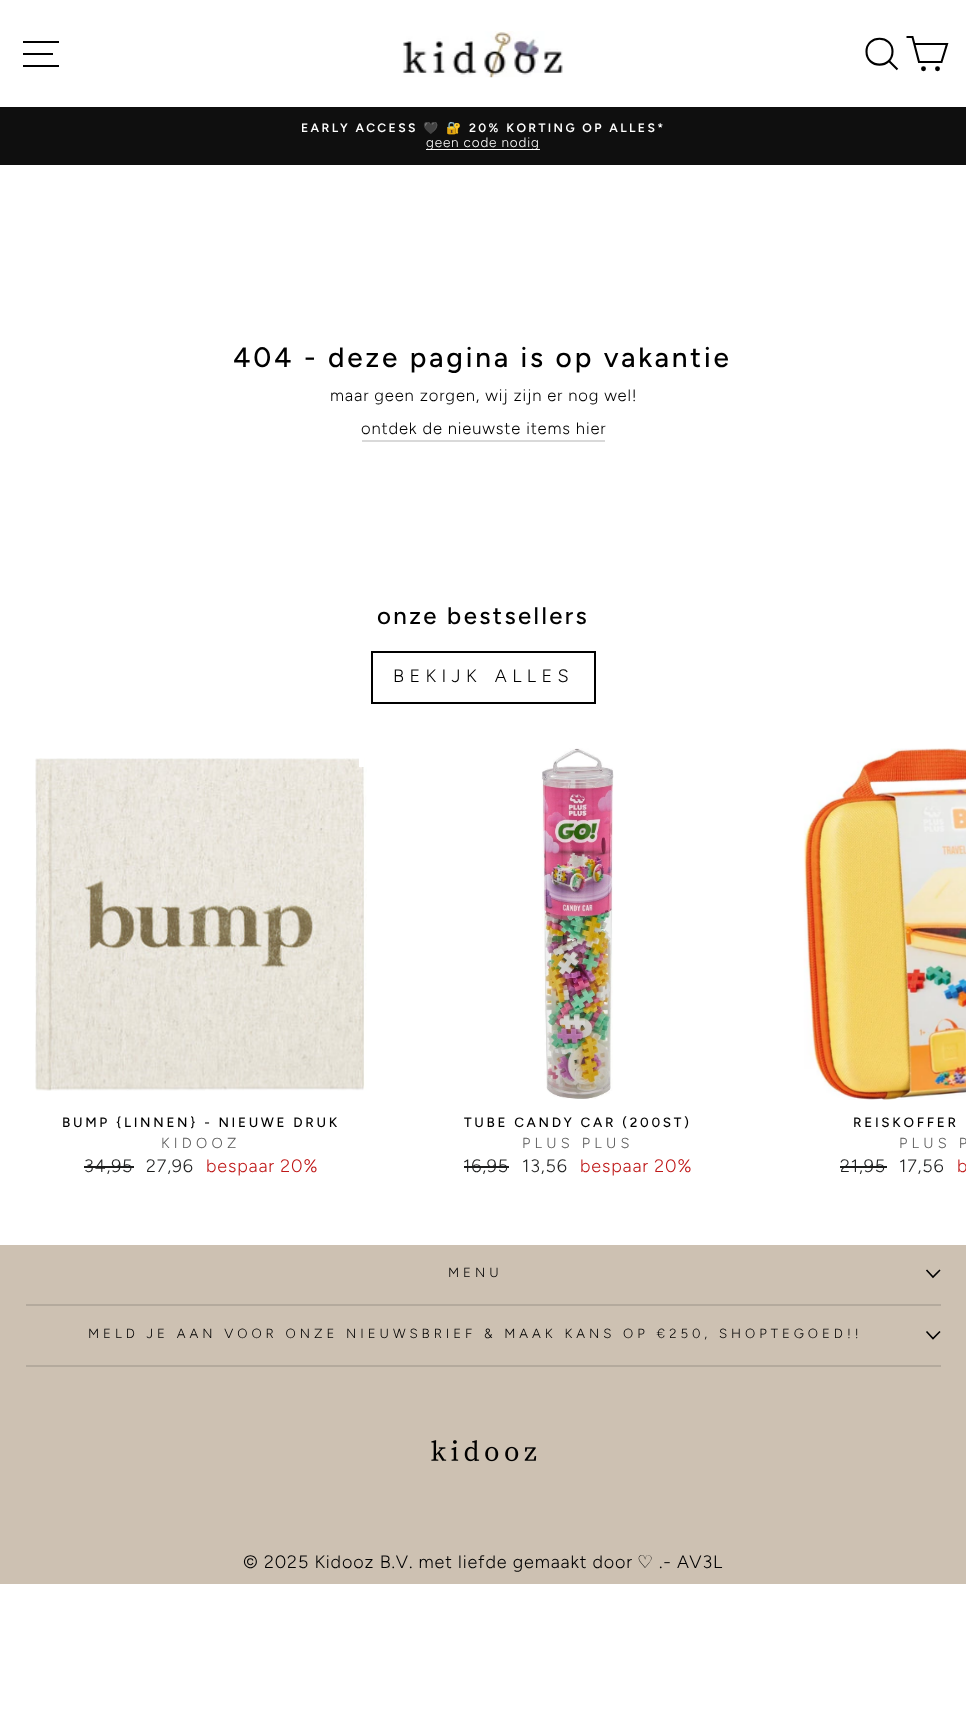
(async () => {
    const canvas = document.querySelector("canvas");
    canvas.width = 966;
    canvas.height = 1736;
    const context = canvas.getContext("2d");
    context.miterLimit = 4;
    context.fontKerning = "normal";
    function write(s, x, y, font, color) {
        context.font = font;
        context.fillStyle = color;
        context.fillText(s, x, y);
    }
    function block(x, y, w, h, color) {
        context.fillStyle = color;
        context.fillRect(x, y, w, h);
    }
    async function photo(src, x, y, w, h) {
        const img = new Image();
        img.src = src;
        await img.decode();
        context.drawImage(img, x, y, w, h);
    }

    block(0, 0, 966, 1736, "rgb(255, 255, 255)");
    block(0, 107, 966, 58, "rgb(15, 15, 15)");
    context.fillStyle = "rgba(0, 0, 0, 0.2)";
    context.filter = "blur(1px)";
    context.beginPath();
    context.rect(0, 0, 966, 107);
    context.fill();
    context.filter = "none";
    block(0, 0, 966, 107, "rgb(255, 255, 255)");
    context.beginPath();
    context.moveTo(23, 42);
    context.lineTo(59, 42);
    context.moveTo(23, 54);
    context.lineTo(53, 54);
    context.moveTo(23, 66);
    context.lineTo(59, 66);
    context.strokeStyle = "rgb(0, 0, 0)";
    context.lineWidth = 2.1;
    context.stroke();
    await photo("media/1.png", 402, 31, 161, 47);
    context.beginPath();
    context.moveTo(892.5, 51.5);
    context.bezierCurveTo(892.5, 69, 866.5, 69, 866.5, 51.5);
    context.bezierCurveTo(866.5, 34.5, 892.5, 34.5, 892.5, 51.5);
    context.closePath();
    context.moveTo(897.5, 69.5);
    context.lineTo(889, 61);
    context.stroke();
    context.beginPath();
    context.moveTo(914.5, 44);
    context.lineTo(947, 44);
    context.lineTo(941.5, 62);
    context.lineTo(919, 62);
    context.lineTo(912.5, 37);
    context.lineTo(906.5, 37);
    context.stroke();
    context.fillStyle = "rgb(0, 0, 0)";
    context.beginPath();
    context.arc(923.5, 68.8, 1.4, 0, Math.PI * 2);
    context.fill();
    context.stroke();
    context.beginPath();
    context.arc(937.5, 68.8, 1.4, 0, Math.PI * 2);
    context.fill();
    context.stroke();
    context.letterSpacing = "2.4px";
    write("EARLY ACCESS", 301, 132, "600 12.2px Figtree", "rgb(255, 255, 255)");
    context.save();
    context.beginPath();
    context.rect(26, 122, 915, 28);
    context.clip();
    write("🖤", 423, 132, "bold 12.2px Noto Color Emoji", "rgb(255, 255, 255)");
    write("🔐", 446, 132, "bold 12.2px Noto Color Emoji", "rgb(255, 255, 255)");
    context.restore();
    write("20% KORTING OP ALLES*", 469, 132, "600 12.2px Figtree", "rgb(255, 255, 255)");
    block(426, 149, 114, 1, "rgb(255, 255, 255)");
    context.letterSpacing = "0.85px";
    write("geen code nodig", 426, 147, "300 13.5px Figtree", "rgb(255, 255, 255)");
    context.letterSpacing = "2.8px";
    write("404 - deze pagina is op vakantie", 233, 367, "500 28px Figtree", "rgb(0, 0, 0)");
    context.letterSpacing = "0.85px";
    write("maar geen zorgen, wij zijn er nog wel!", 330, 401, "300 16.6px Figtree", "rgb(0, 0, 0)");
    write("ontdek de nieuwste items hier", 361, 434, "300 16.6px Figtree", "rgb(0, 0, 0)");
    block(362, 440, 243, 2, "rgb(217, 217, 217)");
    context.letterSpacing = "2.4px";
    write("onze bestsellers", 377, 624, "500 24px Figtree", "rgb(0, 0, 0)");
    context.lineWidth = 2;
    context.strokeRect(372, 652, 223, 51);
    context.letterSpacing = "5.4px";
    context.wordSpacing = "3px";
    write("BEKIJK ALLES", 393, 682, "300 18px Figtree", "rgb(0, 0, 0)");
    await photo("media/2.png", 35, 758, 332, 333);
    block(359, 758, 5, 9, "rgb(255, 255, 255)");
    context.letterSpacing = "2.7px";
    context.wordSpacing = "0px";
    write("BUMP {LINNEN} - NIEUWE DRUK", 62, 1127, "500 13.5px Figtree", "rgb(0, 0, 0)");
    context.letterSpacing = "4.25px";
    write("KIDOOZ", 161, 1148, "300 14.5px Figtree", "rgb(89, 89, 89)");
    context.letterSpacing = "0.85px";
    write("34,95", 84, 1172, "300 18px Figtree", "rgb(28, 29, 29)");
    block(84, 1166, 50, 2, "rgb(28, 29, 29)");
    write("27,96", 146, 1172, "300 18px Figtree", "rgb(28, 29, 29)");
    write("bespaar 20%", 206, 1172, "300 18px Figtree", "rgb(191, 25, 25)");
    await photo("media/3.png", 541, 748, 73, 351);
    context.letterSpacing = "2.7px";
    write("TUBE CANDY CAR (200ST)", 464, 1127, "500 13.5px Figtree", "rgb(0, 0, 0)");
    context.letterSpacing = "4.25px";
    write("PLUS PLUS", 522, 1148, "300 14.5px Figtree", "rgb(89, 89, 89)");
    context.letterSpacing = "0.85px";
    write("16,95", 463, 1172, "300 18px Figtree", "rgb(28, 29, 29)");
    block(464, 1166, 45, 2, "rgb(28, 29, 29)");
    write("13,56", 522, 1172, "300 18px Figtree", "rgb(28, 29, 29)");
    write("bespaar 20%", 580, 1172, "300 18px Figtree", "rgb(191, 25, 25)");
    await photo("media/4.png", 803, 748, 163, 352);
    context.letterSpacing = "2.7px";
    write("REISKOFFER", 853, 1127, "500 13.5px Figtree", "rgb(0, 0, 0)");
    context.letterSpacing = "4.25px";
    write("PLUS P", 899, 1148, "300 14.5px Figtree", "rgb(89, 89, 89)");
    context.letterSpacing = "0.85px";
    write("21,95", 840, 1172, "300 18px Figtree", "rgb(28, 29, 29)");
    block(840, 1166, 47, 2, "rgb(28, 29, 29)");
    write("17,56", 899, 1172, "300 18px Figtree", "rgb(28, 29, 29)");
    write("b", 957, 1172, "300 18px Figtree", "rgb(191, 25, 25)");
    block(0, 1245, 966, 339, "rgb(205, 193, 178)");
    context.letterSpacing = "3.97px";
    write("MENU", 448, 1277, "300 13.25px Figtree", "rgb(0, 0, 0)");
    context.beginPath();
    context.moveTo(926.5, 1270);
    context.lineTo(933, 1277);
    context.lineTo(940, 1270);
    context.lineWidth = 1.6;
    context.stroke();
    block(26, 1304, 915, 2, "rgb(180, 170, 157)");
    context.wordSpacing = "0.5px";
    write("MELD JE AAN VOOR ONZE NIEUWSBRIEF & MAAK KANS OP €250, SHOPTEGOED!!", 88, 1338, "300 13.25px Figtree", "rgb(0, 0, 0)");
    context.beginPath();
    context.moveTo(926.5, 1331.5);
    context.lineTo(933, 1338.5);
    context.lineTo(940, 1331.5);
    context.stroke();
    block(26, 1365, 915, 2, "rgb(180, 170, 157)");
    await photo("media/5.png", 431, 1440, 106, 22);
    context.letterSpacing = "0.85px";
    context.wordSpacing = "0px";
    write("© 2025 Kidooz B.V. met liefde gemaakt door", 243, 1568, "300 18px Figtree", "rgb(0, 0, 0)");
    write("♡", 637, 1568, "18px DejaVu Sans", "rgb(0, 0, 0)");
    write(".- AV3L", 659, 1568, "300 18px Figtree", "rgb(0, 0, 0)");
})();
